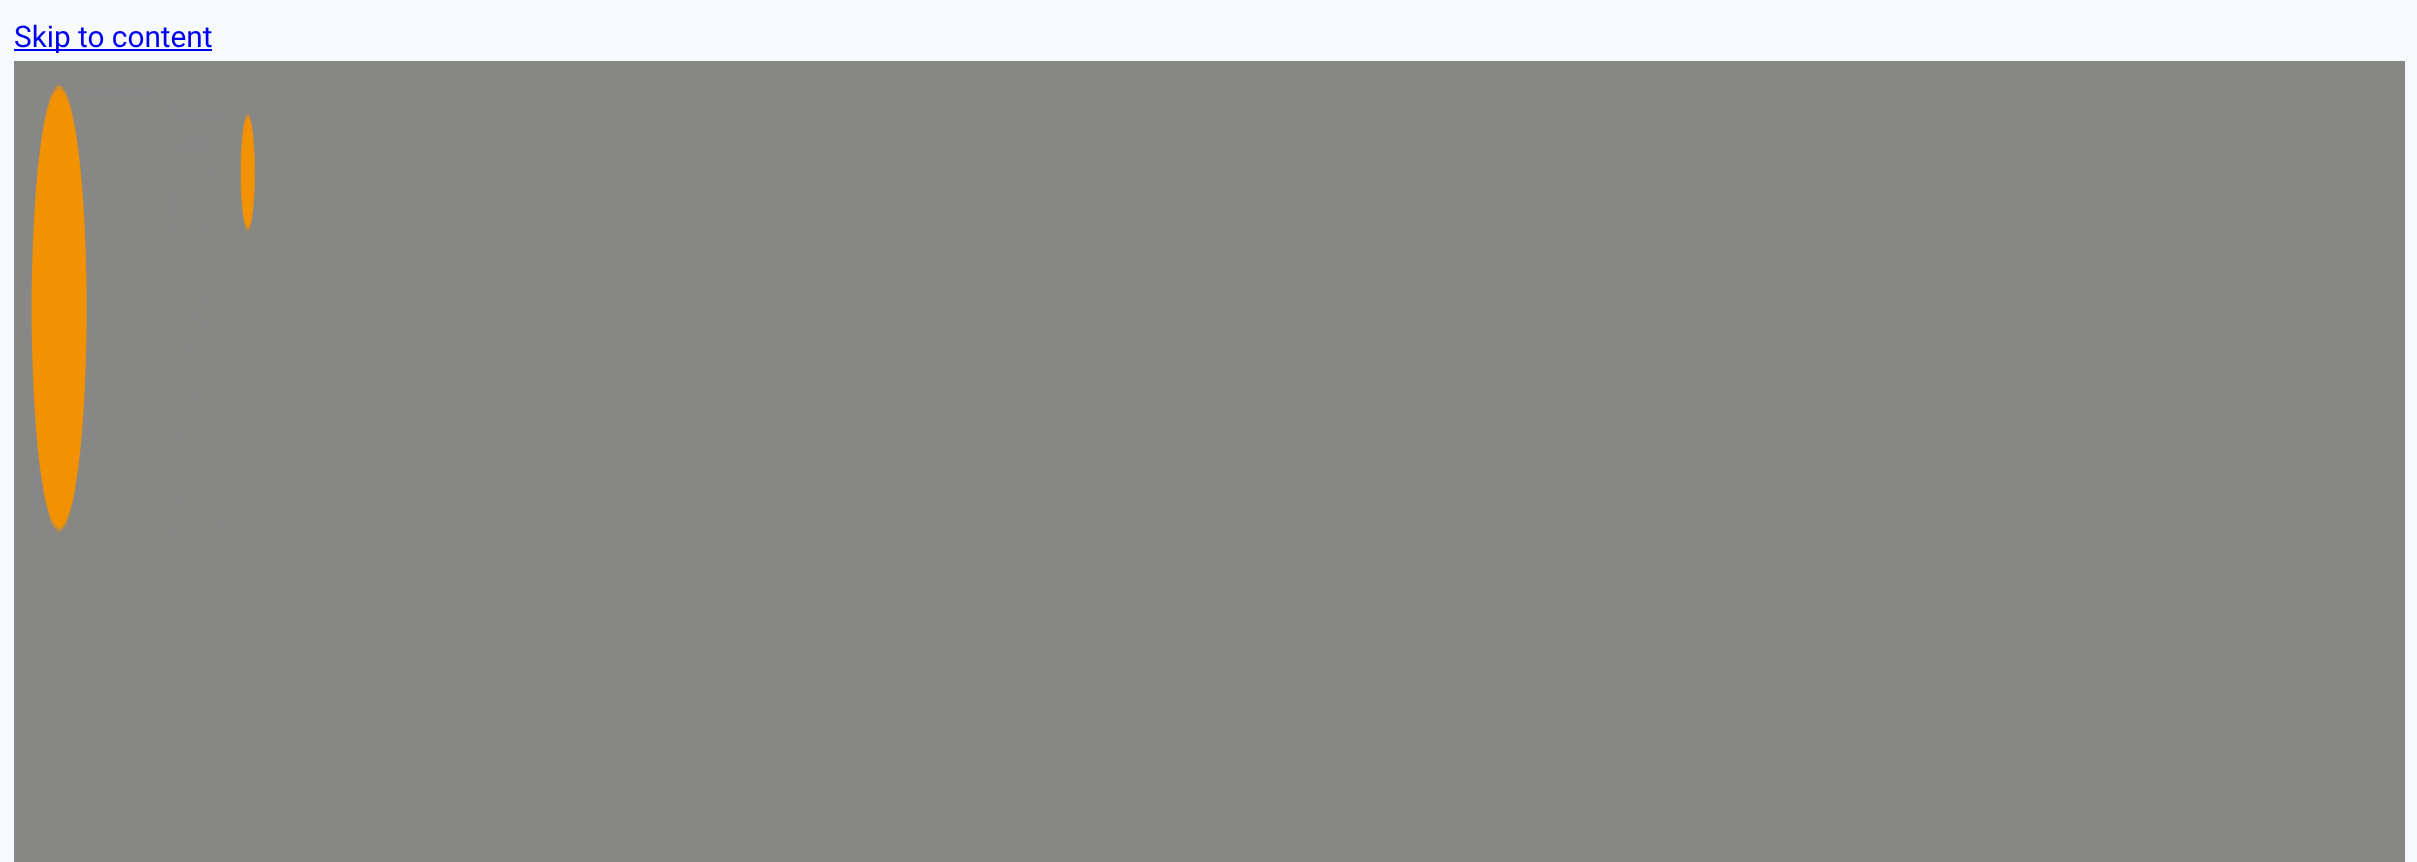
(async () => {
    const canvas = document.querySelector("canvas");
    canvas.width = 2417;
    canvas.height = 862;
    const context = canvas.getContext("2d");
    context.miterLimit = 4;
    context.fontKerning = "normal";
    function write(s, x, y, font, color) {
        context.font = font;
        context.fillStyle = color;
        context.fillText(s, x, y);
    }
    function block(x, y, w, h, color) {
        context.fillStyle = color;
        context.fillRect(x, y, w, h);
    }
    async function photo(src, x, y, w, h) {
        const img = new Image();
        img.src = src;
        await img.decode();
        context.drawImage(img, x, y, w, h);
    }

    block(0, 0, 2417, 862, "rgb(247, 250, 252)");
    block(14, 49, 198, 2, "rgb(0, 0, 238)");
    write("Skip to content", 14, 47, "29.75px Roboto", "rgb(0, 0, 238)");
    block(14, 61, 2391, 801, "rgb(135, 135, 134)");
    await photo("media/1.png", 31, 85, 224, 449);
})();
